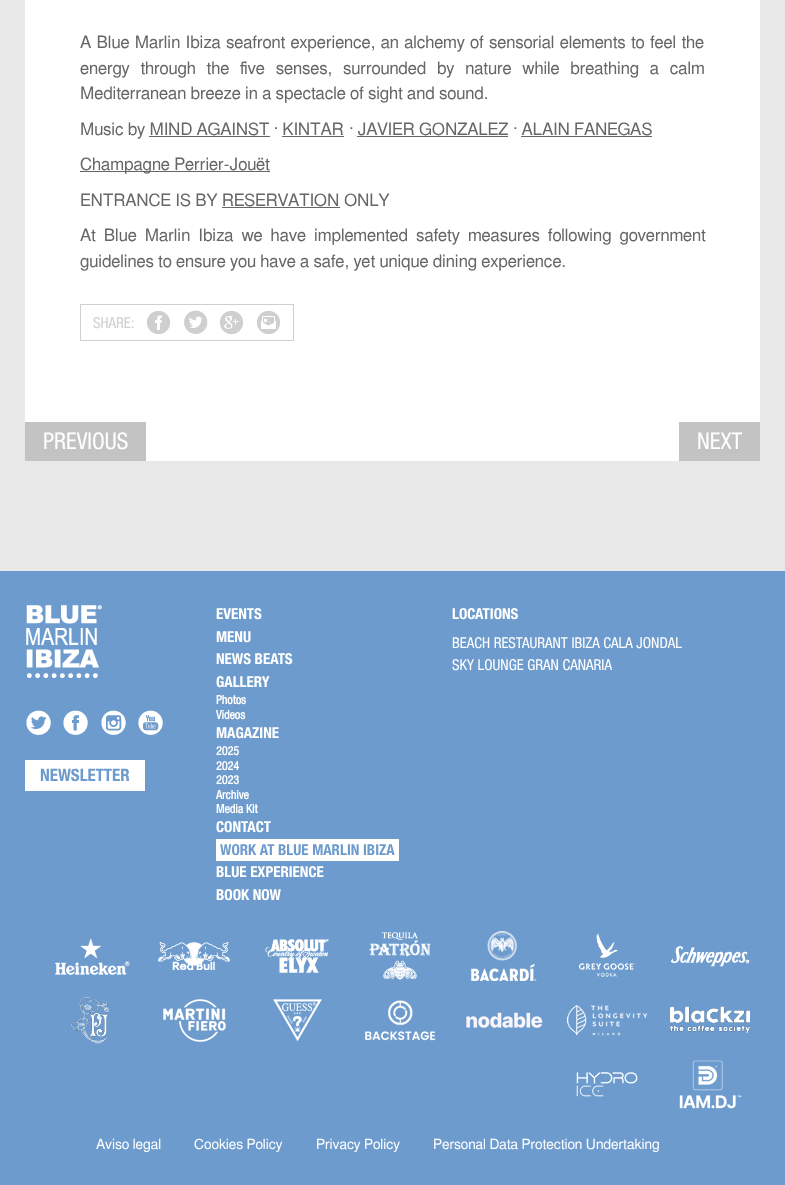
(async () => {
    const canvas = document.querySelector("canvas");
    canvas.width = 785;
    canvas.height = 1185;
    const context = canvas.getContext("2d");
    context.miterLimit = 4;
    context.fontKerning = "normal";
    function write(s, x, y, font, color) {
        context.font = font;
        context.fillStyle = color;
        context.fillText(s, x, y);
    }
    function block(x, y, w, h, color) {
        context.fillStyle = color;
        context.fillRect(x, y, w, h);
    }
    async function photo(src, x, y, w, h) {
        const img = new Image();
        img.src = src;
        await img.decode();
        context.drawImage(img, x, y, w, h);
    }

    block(0, 0, 785, 1185, "rgb(232, 232, 232)");
    block(25, 0, 735, 461, "rgb(255, 255, 255)");
    context.wordSpacing = "1px";
    write("A Blue Marlin Ibiza seafront experience, an alchemy of sensorial elements to feel the", 80, 48, "17px FreeSans", "rgb(102, 102, 102)");
    context.wordSpacing = "6.5px";
    write("energy through the five senses, surrounded by nature while breathing a calm", 80, 74, "17px FreeSans", "rgb(102, 102, 102)");
    context.wordSpacing = "0px";
    write("Mediterranean breeze in a spectacle of sight and sound.", 80, 99, "17px FreeSans", "rgb(102, 102, 102)");
    write("Music by MIND AGAINST · KINTAR", 80, 135, "17px FreeSans", "rgb(102, 102, 102)");
    write("· JAVIER GONZALEZ", 349, 135, "17px FreeSans", "rgb(102, 102, 102)");
    write("· ALAIN FANEGAS", 513, 135, "17px FreeSans", "rgb(102, 102, 102)");
    block(149, 136, 121, 1, "rgb(102, 102, 102)");
    block(282, 136, 62, 1, "rgb(102, 102, 102)");
    block(357, 136, 151, 1, "rgb(102, 102, 102)");
    block(521, 136, 131, 1, "rgb(102, 102, 102)");
    block(80, 171, 190, 1, "rgb(102, 102, 102)");
    write("Champagne Perrier-Jouët", 80, 170, "17px FreeSans", "rgb(102, 102, 102)");
    write("ENTRANCE IS BY", 80, 206, "17px FreeSans", "rgb(102, 102, 102)");
    write("RESERVATION", 222, 206, "17px FreeSans", "rgb(102, 102, 102)");
    block(222, 207, 118, 1, "rgb(102, 102, 102)");
    write("ONLY", 344, 206, "17px FreeSans", "rgb(102, 102, 102)");
    context.wordSpacing = "3.75px";
    write("At Blue Marlin Ibiza we have implemented safety measures following government", 80, 241, "17px FreeSans", "rgb(102, 102, 102)");
    context.wordSpacing = "0px";
    write("guidelines to ensure you have a safe, yet unique dining experience.", 80, 267, "17px FreeSans", "rgb(102, 102, 102)");
    context.strokeStyle = "rgb(207, 207, 207)";
    context.strokeRect(80.5, 304.5, 213, 36);
    write("SHARE:", 93, 328, "15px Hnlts", "rgb(207, 207, 207)");
    await photo("media/1.png", 146, 311, 25, 23);
    await photo("media/2.png", 184, 310, 24, 24);
    await photo("media/3.png", 219, 311, 25, 23);
    await photo("media/4.png", 256, 311, 25, 23);
    block(25, 422, 121, 39, "rgb(195, 195, 195)");
    write("PREVIOUS", 43, 449, "23px Hnlts", "rgb(255, 255, 255)");
    block(679, 422, 81, 39, "rgb(195, 195, 195)");
    write("NEXT", 697, 449, "23px Hnlts", "rgb(255, 255, 255)");
    block(0, 571, 785, 614, "rgb(109, 155, 205)");
    write("EVENTS", 216, 619, "bold 15px Hnlts", "rgb(255, 255, 255)");
    write("MENU", 216, 642, "bold 15px Hnlts", "rgb(255, 255, 255)");
    write("NEWS BEATS", 216, 664, "bold 15px Hnlts", "rgb(255, 255, 255)");
    write("GALLERY", 216, 687, "bold 15px Hnlts", "rgb(255, 255, 255)");
    write("Photos", 216, 704, "bold 12px 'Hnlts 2'", "rgb(255, 255, 255)");
    write("Videos", 216, 719, "bold 12px 'Hnlts 2'", "rgb(255, 255, 255)");
    write("MAGAZINE", 216, 738, "bold 15px Hnlts", "rgb(255, 255, 255)");
    write("2025", 216, 755, "bold 12px 'Hnlts 2'", "rgb(255, 255, 255)");
    write("2024", 216, 770, "bold 12px 'Hnlts 2'", "rgb(255, 255, 255)");
    write("2023", 216, 784, "bold 12px 'Hnlts 2'", "rgb(255, 255, 255)");
    write("Archive", 216, 799, "bold 12px 'Hnlts 2'", "rgb(255, 255, 255)");
    write("Media Kit", 216, 813, "bold 12px 'Hnlts 2'", "rgb(255, 255, 255)");
    write("CONTACT", 216, 832, "bold 15px Hnlts", "rgb(255, 255, 255)");
    block(216, 839, 183, 22, "rgb(255, 255, 255)");
    write("WORK AT BLUE MARLIN IBIZA", 220, 855, "bold 15px Hnlts", "rgb(109, 155, 205)");
    write("BLUE EXPERIENCE", 216, 877, "bold 15px Hnlts", "rgb(255, 255, 255)");
    write("BOOK NOW", 216, 900, "bold 15px Hnlts", "rgb(255, 255, 255)");
    write("LOCATIONS", 452, 619, "bold 15px Hnlts", "rgb(255, 255, 255)");
    write("BEACH RESTAURANT IBIZA CALA JONDAL", 452, 648, "15px Hnlts", "rgb(255, 255, 255)");
    write("SKY LOUNGE GRAN CANARIA", 452, 670, "15px Hnlts", "rgb(255, 255, 255)");
    await photo("media/5.png", 26, 605, 76, 73);
    await photo("media/6.png", 26, 710, 25, 25);
    await photo("media/7.png", 63, 710, 25, 25);
    await photo("media/8.png", 101, 710, 25, 25);
    await photo("media/9.png", 138, 710, 25, 25);
    block(25, 760, 120, 31, "rgb(255, 255, 255)");
    write("NEWSLETTER", 40, 781, "bold 17px Hnlts", "rgb(109, 155, 205)");
    await photo("media/10.png", 55, 938, 75, 37);
    await photo("media/11.png", 158, 942, 72, 29);
    await photo("media/12.png", 265, 939, 64, 34);
    await photo("media/13.png", 369, 932, 62, 48);
    await photo("media/14.png", 471, 931, 66, 50);
    await photo("media/15.png", 579, 933, 56, 44);
    await photo("media/16.png", 670, 946, 80, 21);
    await photo("media/17.png", 71, 997, 38, 47);
    await photo("media/18.png", 163, 999, 63, 43);
    await photo("media/19.png", 273, 999, 49, 43);
    await photo("media/20.png", 365, 1000, 71, 41);
    await photo("media/21.png", 466, 1012, 77, 16);
    await photo("media/22.png", 567, 1005, 80, 31);
    await photo("media/23.png", 670, 1006, 80, 27);
    await photo("media/24.png", 576, 1072, 62, 25);
    await photo("media/25.png", 679, 1060, 63, 49);
    write("Aviso legal", 96, 1149, "14px FreeSans", "rgb(255, 255, 255)");
    write("Cookies Policy", 194, 1149, "14px FreeSans", "rgb(255, 255, 255)");
    write("Privacy Policy", 316, 1149, "14px FreeSans", "rgb(255, 255, 255)");
    write("Personal Data Protection Undertaking", 433, 1149, "14px FreeSans", "rgb(255, 255, 255)");
})();
